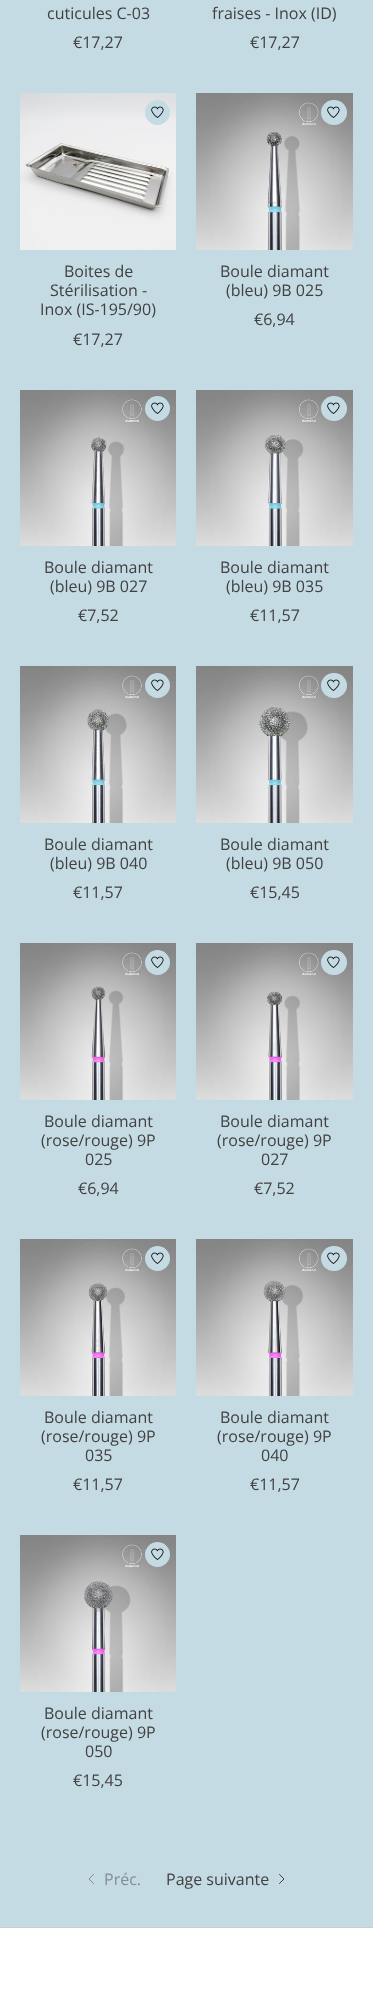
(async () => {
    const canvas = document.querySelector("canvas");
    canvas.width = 373;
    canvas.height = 1989;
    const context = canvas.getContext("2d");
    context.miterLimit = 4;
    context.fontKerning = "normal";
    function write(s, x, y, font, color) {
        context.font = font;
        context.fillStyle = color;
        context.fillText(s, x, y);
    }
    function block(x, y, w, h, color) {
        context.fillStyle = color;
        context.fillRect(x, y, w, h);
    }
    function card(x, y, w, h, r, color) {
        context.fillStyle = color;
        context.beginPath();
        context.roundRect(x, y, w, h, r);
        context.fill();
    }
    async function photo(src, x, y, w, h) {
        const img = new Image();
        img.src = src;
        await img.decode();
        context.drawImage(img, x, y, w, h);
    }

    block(0, 0, 373, 1989, "rgb(197, 219, 228)");
    write("cuticules C-03", 47, 19, "16px Open Sans", "rgb(65, 65, 65)");
    write("€17,27", 73, 48, "16px Open Sans", "rgb(65, 65, 65)");
    write("fraises - Inox (ID)", 212, 19, "16px Open Sans", "rgb(65, 65, 65)");
    write("€17,27", 250, 48, "16px Open Sans", "rgb(65, 65, 65)");
    await photo("media/1.png", 20, 93, 156, 157);
    context.fillStyle = "rgb(197, 219, 228)";
    context.beginPath();
    context.arc(157.5, 112.5, 12.5, 0, Math.PI * 2);
    context.fill();
    await photo("media/2.png", 151, 106, 13, 12);
    write("Boites de", 64, 277, "16px Open Sans", "rgb(65, 65, 65)");
    write("Stérilisation -", 50, 296, "16px Open Sans", "rgb(65, 65, 65)");
    write("Inox (IS-195/90)", 40, 315, "16px Open Sans", "rgb(65, 65, 65)");
    write("€17,27", 73, 345, "16px Open Sans", "rgb(65, 65, 65)");
    await photo("media/3.png", 196, 93, 157, 157);
    card(321, 100, 26, 25, 12.5, "rgb(197, 219, 228)");
    await photo("media/2.png", 327, 106, 13, 12);
    write("Boule diamant", 220, 277, "16px Open Sans", "rgb(65, 65, 65)");
    write("(bleu) 9B 025", 226, 296, "16px Open Sans", "rgb(65, 65, 65)");
    write("€6,94", 254, 325, "16px Open Sans", "rgb(65, 65, 65)");
    await photo("media/4.png", 20, 390, 156, 156);
    context.fillStyle = "rgb(197, 219, 228)";
    context.beginPath();
    context.arc(157.5, 408.5, 12.5, 0, Math.PI * 2);
    context.fill();
    await photo("media/2.png", 151, 402, 13, 12);
    write("Boule diamant", 44, 573, "16px Open Sans", "rgb(65, 65, 65)");
    write("(bleu) 9B 027", 50, 592, "16px Open Sans", "rgb(65, 65, 65)");
    write("€7,52", 78, 621, "16px Open Sans", "rgb(65, 65, 65)");
    await photo("media/5.png", 196, 390, 157, 156);
    card(321, 396, 26, 25, 12.5, "rgb(197, 219, 228)");
    await photo("media/2.png", 327, 402, 13, 12);
    write("Boule diamant", 220, 573, "16px Open Sans", "rgb(65, 65, 65)");
    write("(bleu) 9B 035", 226, 592, "16px Open Sans", "rgb(65, 65, 65)");
    write("€11,57", 250, 621, "16px Open Sans", "rgb(65, 65, 65)");
    await photo("media/6.png", 20, 666, 156, 157);
    context.fillStyle = "rgb(197, 219, 228)";
    context.beginPath();
    context.arc(157.5, 685.5, 12.5, 0, Math.PI * 2);
    context.fill();
    await photo("media/2.png", 151, 679, 13, 12);
    write("Boule diamant", 44, 850, "16px Open Sans", "rgb(65, 65, 65)");
    write("(bleu) 9B 040", 50, 869, "16px Open Sans", "rgb(65, 65, 65)");
    write("€11,57", 73, 898, "16px Open Sans", "rgb(65, 65, 65)");
    await photo("media/7.png", 196, 666, 157, 157);
    card(321, 673, 26, 25, 12.5, "rgb(197, 219, 228)");
    await photo("media/2.png", 327, 679, 13, 12);
    write("Boule diamant", 220, 850, "16px Open Sans", "rgb(65, 65, 65)");
    write("(bleu) 9B 050", 226, 869, "16px Open Sans", "rgb(65, 65, 65)");
    write("€15,45", 250, 898, "16px Open Sans", "rgb(65, 65, 65)");
    await photo("media/8.png", 20, 943, 156, 157);
    context.fillStyle = "rgb(197, 219, 228)";
    context.beginPath();
    context.arc(157.5, 962.5, 12.5, 0, Math.PI * 2);
    context.fill();
    await photo("media/2.png", 151, 956, 13, 12);
    write("Boule diamant", 44, 1127, "16px Open Sans", "rgb(65, 65, 65)");
    write("(rose/rouge) 9P", 41, 1146, "16px Open Sans", "rgb(65, 65, 65)");
    write("025", 85, 1165, "16px Open Sans", "rgb(65, 65, 65)");
    write("€6,94", 78, 1194, "16px Open Sans", "rgb(65, 65, 65)");
    await photo("media/9.png", 196, 943, 157, 157);
    card(321, 950, 26, 25, 12.5, "rgb(197, 219, 228)");
    await photo("media/2.png", 327, 956, 13, 12);
    write("Boule diamant", 220, 1127, "16px Open Sans", "rgb(65, 65, 65)");
    write("(rose/rouge) 9P", 217, 1146, "16px Open Sans", "rgb(65, 65, 65)");
    write("027", 261, 1165, "16px Open Sans", "rgb(65, 65, 65)");
    write("€7,52", 254, 1194, "16px Open Sans", "rgb(65, 65, 65)");
    await photo("media/10.png", 20, 1239, 156, 157);
    context.fillStyle = "rgb(197, 219, 228)";
    context.beginPath();
    context.arc(157.5, 1258.5, 12.5, 0, Math.PI * 2);
    context.fill();
    await photo("media/2.png", 151, 1252, 13, 12);
    write("Boule diamant", 44, 1423, "16px Open Sans", "rgb(65, 65, 65)");
    write("(rose/rouge) 9P", 41, 1442, "16px Open Sans", "rgb(65, 65, 65)");
    write("035", 85, 1461, "16px Open Sans", "rgb(65, 65, 65)");
    write("€11,57", 73, 1490, "16px Open Sans", "rgb(65, 65, 65)");
    await photo("media/11.png", 196, 1239, 157, 157);
    card(321, 1246, 26, 25, 12.5, "rgb(197, 219, 228)");
    await photo("media/2.png", 327, 1252, 13, 12);
    write("Boule diamant", 220, 1423, "16px Open Sans", "rgb(65, 65, 65)");
    write("(rose/rouge) 9P", 217, 1442, "16px Open Sans", "rgb(65, 65, 65)");
    write("040", 261, 1461, "16px Open Sans", "rgb(65, 65, 65)");
    write("€11,57", 250, 1490, "16px Open Sans", "rgb(65, 65, 65)");
    await photo("media/12.png", 20, 1535, 156, 157);
    context.fillStyle = "rgb(197, 219, 228)";
    context.beginPath();
    context.arc(157.5, 1554.5, 12.5, 0, Math.PI * 2);
    context.fill();
    await photo("media/2.png", 151, 1548, 13, 12);
    write("Boule diamant", 44, 1719, "16px Open Sans", "rgb(65, 65, 65)");
    write("(rose/rouge) 9P", 41, 1738, "16px Open Sans", "rgb(65, 65, 65)");
    write("050", 85, 1757, "16px Open Sans", "rgb(65, 65, 65)");
    write("€15,45", 73, 1786, "16px Open Sans", "rgb(65, 65, 65)");
    context.beginPath();
    context.moveTo(93.5, 1874.5);
    context.lineTo(89, 1879);
    context.lineTo(93.5, 1883.5);
    context.strokeStyle = "rgb(131, 142, 147)";
    context.lineCap = "round";
    context.lineJoin = "round";
    context.stroke();
    write("Préc.", 104, 1885, "16px Open Sans", "rgb(131, 142, 147)");
    write("Page suivante", 166, 1885, "16px Open Sans", "rgb(65, 65, 65)");
    context.beginPath();
    context.moveTo(279.5, 1874.5);
    context.lineTo(284, 1879);
    context.lineTo(279.5, 1883.5);
    context.strokeStyle = "rgb(65, 65, 65)";
    context.stroke();
    block(0, 1928, 373, 61, "rgb(255, 255, 255)");
    block(0, 1927, 373, 1, "rgb(204, 204, 204)");
})();
